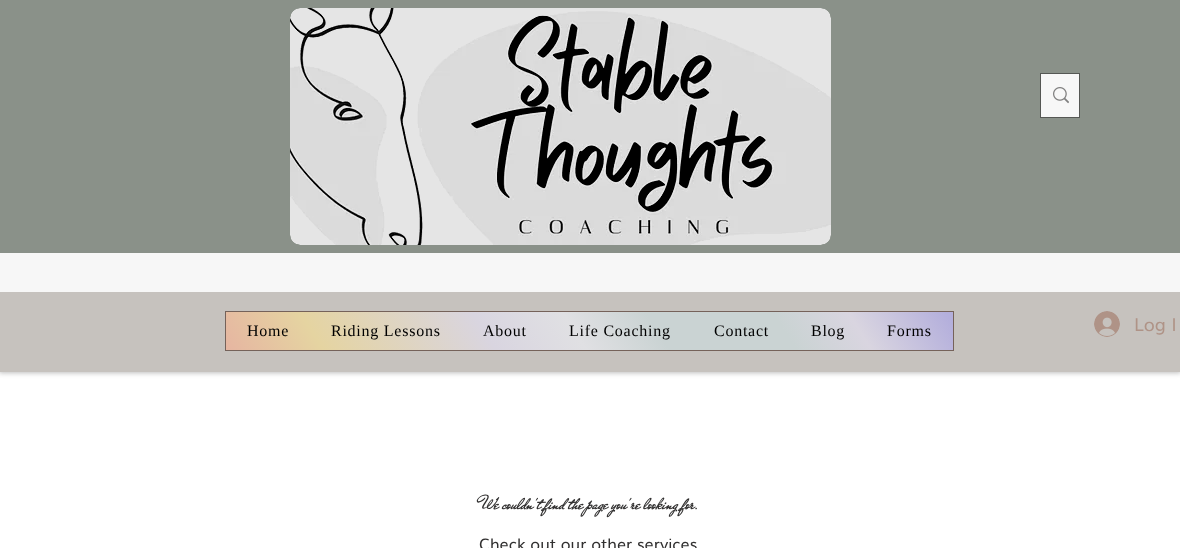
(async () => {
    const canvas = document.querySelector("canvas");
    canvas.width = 1180;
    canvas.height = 548;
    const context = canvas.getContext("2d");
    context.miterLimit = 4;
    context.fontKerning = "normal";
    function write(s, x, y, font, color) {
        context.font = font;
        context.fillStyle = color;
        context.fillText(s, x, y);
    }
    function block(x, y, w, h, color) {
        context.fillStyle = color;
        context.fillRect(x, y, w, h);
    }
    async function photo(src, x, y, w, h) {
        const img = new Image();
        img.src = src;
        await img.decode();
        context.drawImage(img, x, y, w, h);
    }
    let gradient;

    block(0, 0, 1180, 548, "rgb(255, 255, 255)");
    context.fillStyle = "rgba(0, 0, 0, 0.26)";
    context.filter = "blur(2.5px)";
    context.beginPath();
    context.rect(-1, 0, 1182, 373);
    context.fill();
    context.filter = "none";
    block(0, 253, 1180, 39, "rgb(247, 247, 247)");
    block(0, 0, 1180, 253, "rgb(138, 145, 137)");
    await photo("media/1.png", 290, 8, 541, 237);
    context.strokeStyle = "rgb(85, 87, 84)";
    context.strokeRect(1040.5, 73.5, 39, 44);
    block(1041, 74, 38, 43, "rgb(247, 247, 247)");
    await photo("media/2.png", 1053, 87, 16, 17);
    block(0, 292, 1180, 80, "rgb(198, 194, 190)");
    gradient = context.createLinearGradient(320, 500, 859, 162);
    gradient.addColorStop(0, "rgb(230, 181, 161)");
    gradient.addColorStop(0.13, "rgb(229, 212, 161)");
    gradient.addColorStop(0.36, "rgb(217, 213, 224)");
    gradient.addColorStop(0.48, "rgb(224, 224, 227)");
    gradient.addColorStop(0.59, "rgb(202, 211, 211)");
    gradient.addColorStop(0.76, "rgb(202, 211, 211)");
    gradient.addColorStop(0.86, "rgb(217, 213, 224)");
    gradient.addColorStop(0.99, "rgb(180, 175, 220)");
    context.fillStyle = gradient;
    context.fillRect(226, 312, 727, 38);
    context.strokeStyle = "rgb(117, 98, 90)";
    context.strokeRect(225.5, 311.5, 728, 39);
    context.letterSpacing = "0.75px";
    write("Home", 247, 336, "16px Liberation Serif", "rgb(0, 0, 0)");
    write("Riding Lessons", 331, 336, "16px Liberation Serif", "rgb(0, 0, 0)");
    write("About", 483, 336, "16px Liberation Serif", "rgb(0, 0, 0)");
    write("Life Coaching", 569, 336, "16px Liberation Serif", "rgb(0, 0, 0)");
    write("Contact", 714, 336, "16px Liberation Serif", "rgb(0, 0, 0)");
    write("Blog", 811, 336, "16px Liberation Serif", "rgb(0, 0, 0)");
    write("Forms", 887, 336, "16px Liberation Serif", "rgb(0, 0, 0)");
    await photo("media/3.png", 1094, 311, 26, 26);
    context.letterSpacing = "0px";
    write("Log I", 1134, 331, "18px Muli", "rgb(175, 147, 135)");
    write("We couldn't find the page you're looking for.", 481, 509, "bold 20px Mr De Haviland", "rgb(49, 48, 48)");
    write("Check out our other services", 479, 550, "16px Muli", "rgb(49, 48, 48)");
})();
